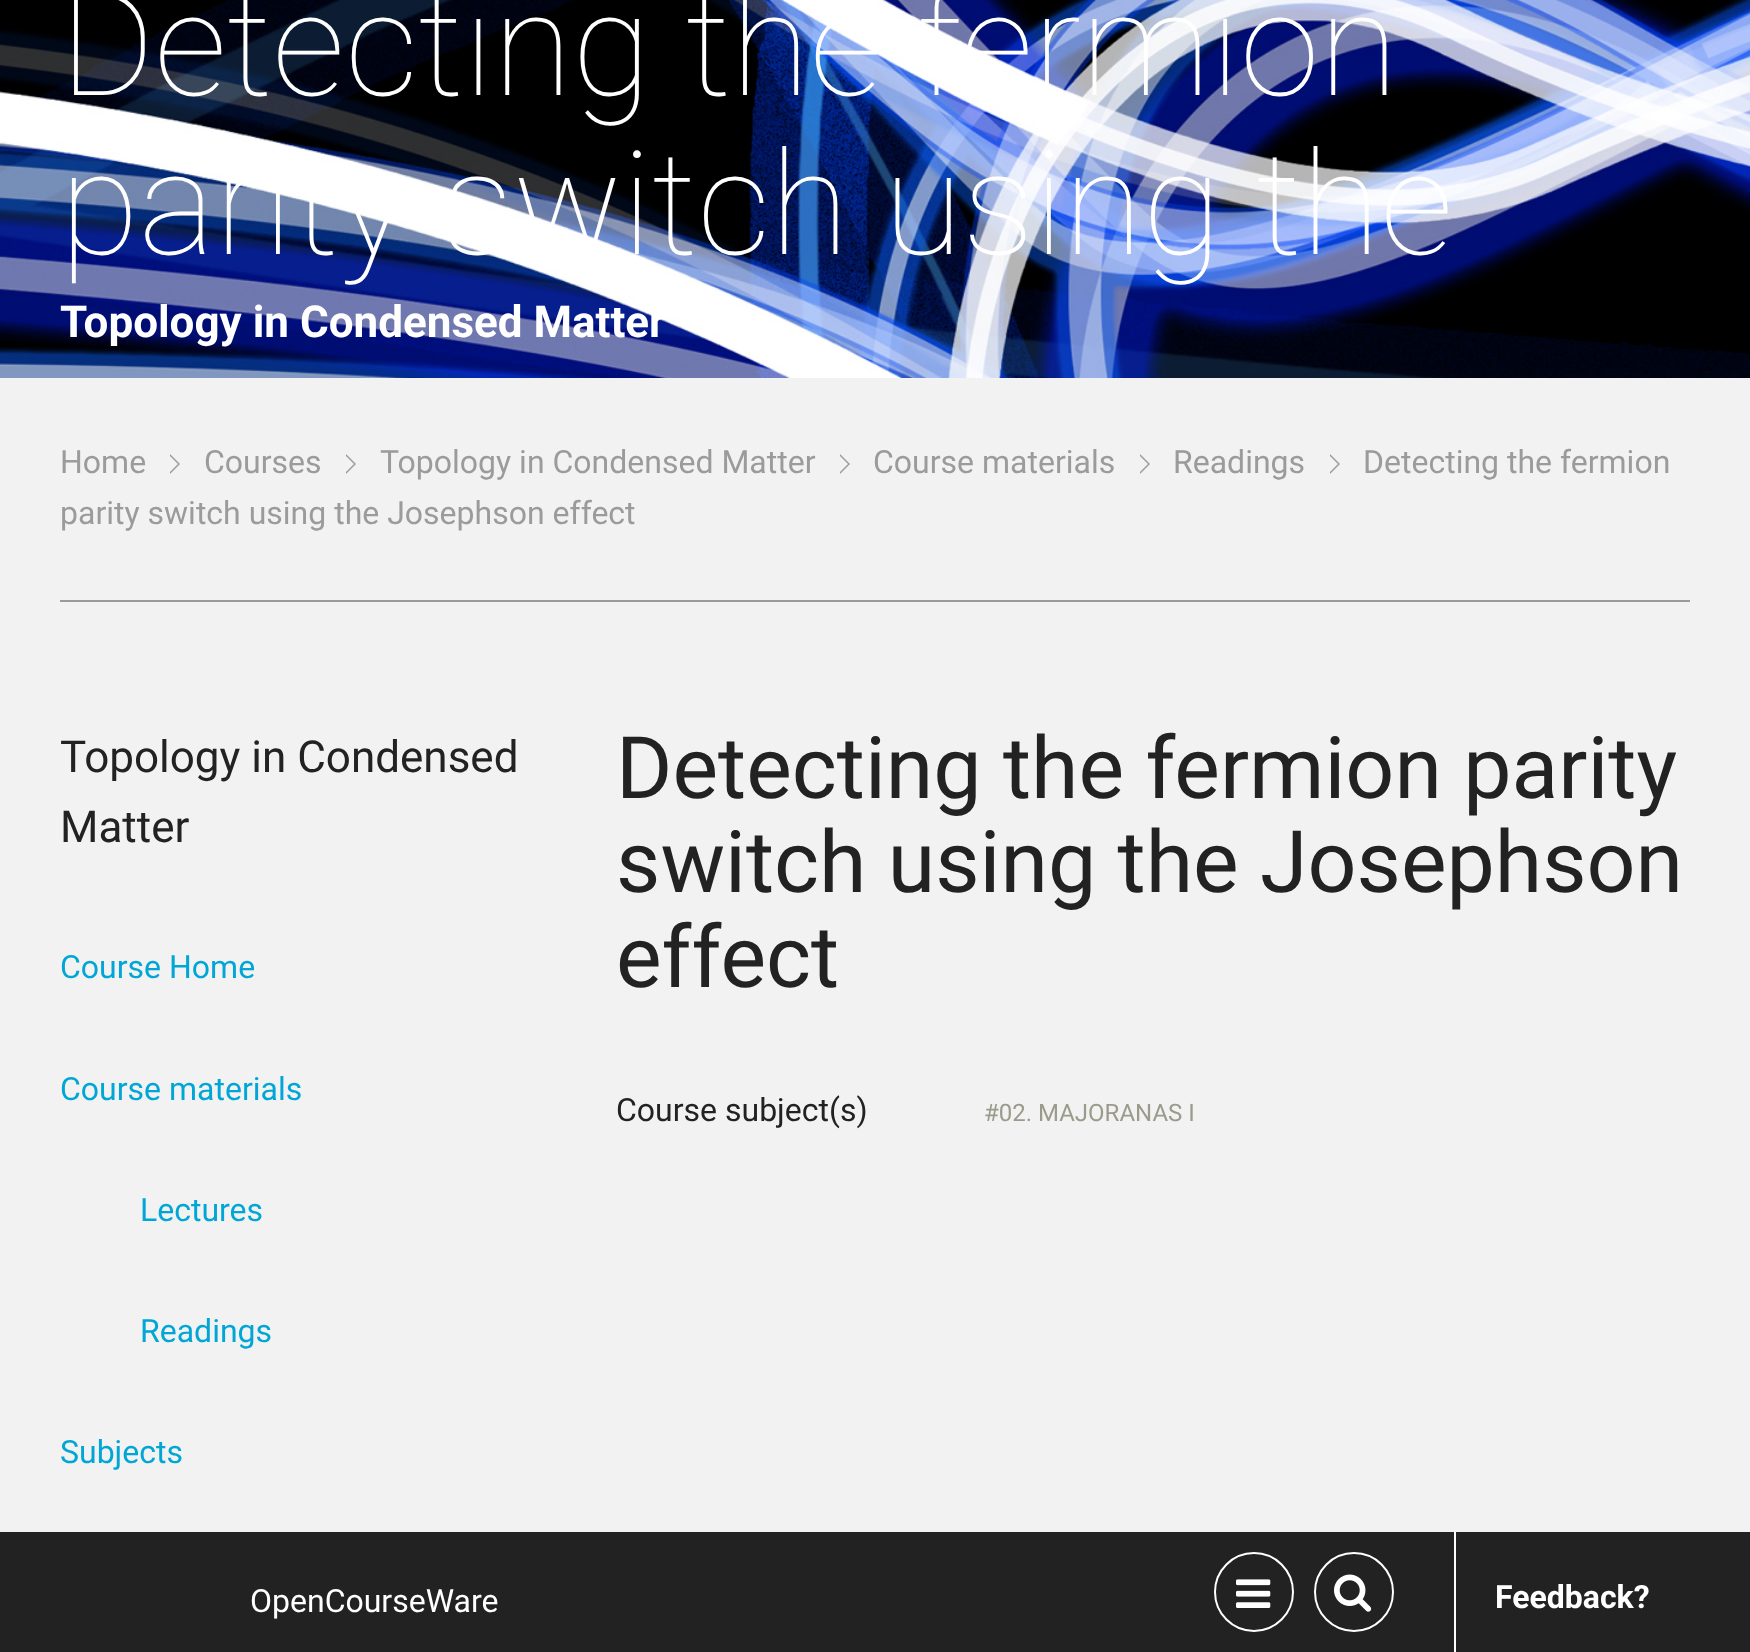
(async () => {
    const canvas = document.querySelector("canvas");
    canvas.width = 1750;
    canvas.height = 1652;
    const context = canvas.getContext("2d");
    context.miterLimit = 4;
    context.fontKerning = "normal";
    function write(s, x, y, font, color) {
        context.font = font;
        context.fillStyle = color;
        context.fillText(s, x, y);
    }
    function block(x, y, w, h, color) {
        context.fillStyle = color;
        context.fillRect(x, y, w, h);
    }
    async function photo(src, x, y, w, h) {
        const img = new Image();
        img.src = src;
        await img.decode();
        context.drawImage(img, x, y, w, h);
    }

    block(0, 0, 1750, 1652, "rgb(242, 242, 242)");
    await photo("media/1.png", 0, 0, 1750, 378);
    write("Detecting the fermion", 60, 95, "100 144px Roboto", "rgb(255, 255, 255)");
    write("parity switch using the", 60, 254, "100 144px Roboto", "rgb(255, 255, 255)");
    write("Topology in Condensed Matter", 60, 337, "bold 44px Roboto", "rgb(255, 255, 255)");
    block(60, 600, 1630, 2, "rgb(155, 155, 155)");
    write("Readings", 1173, 473, "32px Roboto", "rgb(155, 155, 155)");
    context.beginPath();
    context.moveTo(1330, 474);
    context.lineTo(1330, 454);
    context.lineTo(1340, 464);
    context.closePath();
    context.fill();
    context.fillStyle = "rgb(242, 242, 242)";
    context.beginPath();
    context.moveTo(1328, 474);
    context.lineTo(1328, 454);
    context.lineTo(1338, 464);
    context.closePath();
    context.fill();
    write("Detecting the fermion", 1363, 473, "32px Roboto", "rgb(155, 155, 155)");
    write("parity switch using the Josephson effect", 60, 524, "32px Roboto", "rgb(155, 155, 155)");
    write("Course materials", 873, 473, "32px Roboto", "rgb(155, 155, 155)");
    context.beginPath();
    context.moveTo(1140, 474);
    context.lineTo(1140, 454);
    context.lineTo(1150, 464);
    context.closePath();
    context.fill();
    context.fillStyle = "rgb(242, 242, 242)";
    context.beginPath();
    context.moveTo(1138, 474);
    context.lineTo(1138, 454);
    context.lineTo(1148, 464);
    context.closePath();
    context.fill();
    write("Topology in Condensed Matter", 380, 473, "32px Roboto", "rgb(155, 155, 155)");
    context.beginPath();
    context.moveTo(840, 474);
    context.lineTo(840, 454);
    context.lineTo(850, 464);
    context.closePath();
    context.fill();
    context.fillStyle = "rgb(242, 242, 242)";
    context.beginPath();
    context.moveTo(838, 474);
    context.lineTo(838, 454);
    context.lineTo(848, 464);
    context.closePath();
    context.fill();
    write("Courses", 204, 473, "32px Roboto", "rgb(155, 155, 155)");
    context.beginPath();
    context.moveTo(346, 474);
    context.lineTo(346, 454);
    context.lineTo(356, 464);
    context.closePath();
    context.fill();
    context.fillStyle = "rgb(242, 242, 242)";
    context.beginPath();
    context.moveTo(344, 474);
    context.lineTo(344, 454);
    context.lineTo(354, 464);
    context.closePath();
    context.fill();
    write("Home", 60, 473, "32px Roboto", "rgb(155, 155, 155)");
    context.beginPath();
    context.moveTo(170, 474);
    context.lineTo(170, 454);
    context.lineTo(180, 464);
    context.closePath();
    context.fill();
    context.fillStyle = "rgb(242, 242, 242)";
    context.beginPath();
    context.moveTo(168, 474);
    context.lineTo(168, 454);
    context.lineTo(178, 464);
    context.closePath();
    context.fill();
    write("Topology in Condensed", 60, 772, "44px Roboto", "rgb(34, 34, 34)");
    write("Matter", 60, 842, "44px Roboto", "rgb(34, 34, 34)");
    write("Course Home", 60, 978, "32px Roboto", "rgb(0, 166, 214)");
    write("Course materials", 60, 1100, "32px Roboto", "rgb(0, 166, 214)");
    write("Lectures", 140, 1221, "32px Roboto", "rgb(0, 166, 214)");
    write("Readings", 140, 1342, "32px Roboto", "rgb(0, 166, 214)");
    write("Subjects", 60, 1463, "32px Roboto", "rgb(0, 166, 214)");
    write("Detecting the fermion parity", 616, 798, "86px Roboto", "rgb(34, 34, 34)");
    write("switch using the Josephson", 616, 892, "86px Roboto", "rgb(34, 34, 34)");
    write("effect", 616, 987, "86px Roboto", "rgb(34, 34, 34)");
    write("Course subject(s)", 616, 1121, "32px Roboto", "rgb(34, 34, 34)");
    write("#02. MAJORANAS I", 984, 1121, "24px Roboto", "rgb(155, 155, 139)");
    block(0, 1532, 1750, 120, "rgb(34, 34, 34)");
    write("OpenCourseWare", 250, 1612, "32px Roboto", "rgb(255, 255, 255)");
    context.beginPath();
    context.arc(1254, 1592, 39, 0, Math.PI * 2);
    context.strokeStyle = "rgb(255, 255, 255)";
    context.lineWidth = 2;
    context.stroke();
    await photo("media/2.png", 1236, 1579, 35, 29);
    context.beginPath();
    context.arc(1354, 1592, 39, 0, Math.PI * 2);
    context.stroke();
    await photo("media/3.png", 1334, 1574, 38, 38);
    block(1454, 1532, 2, 120, "rgb(255, 255, 255)");
    write("Feedback?", 1495, 1608, "bold 32px Roboto", "rgb(255, 255, 255)");
})();
